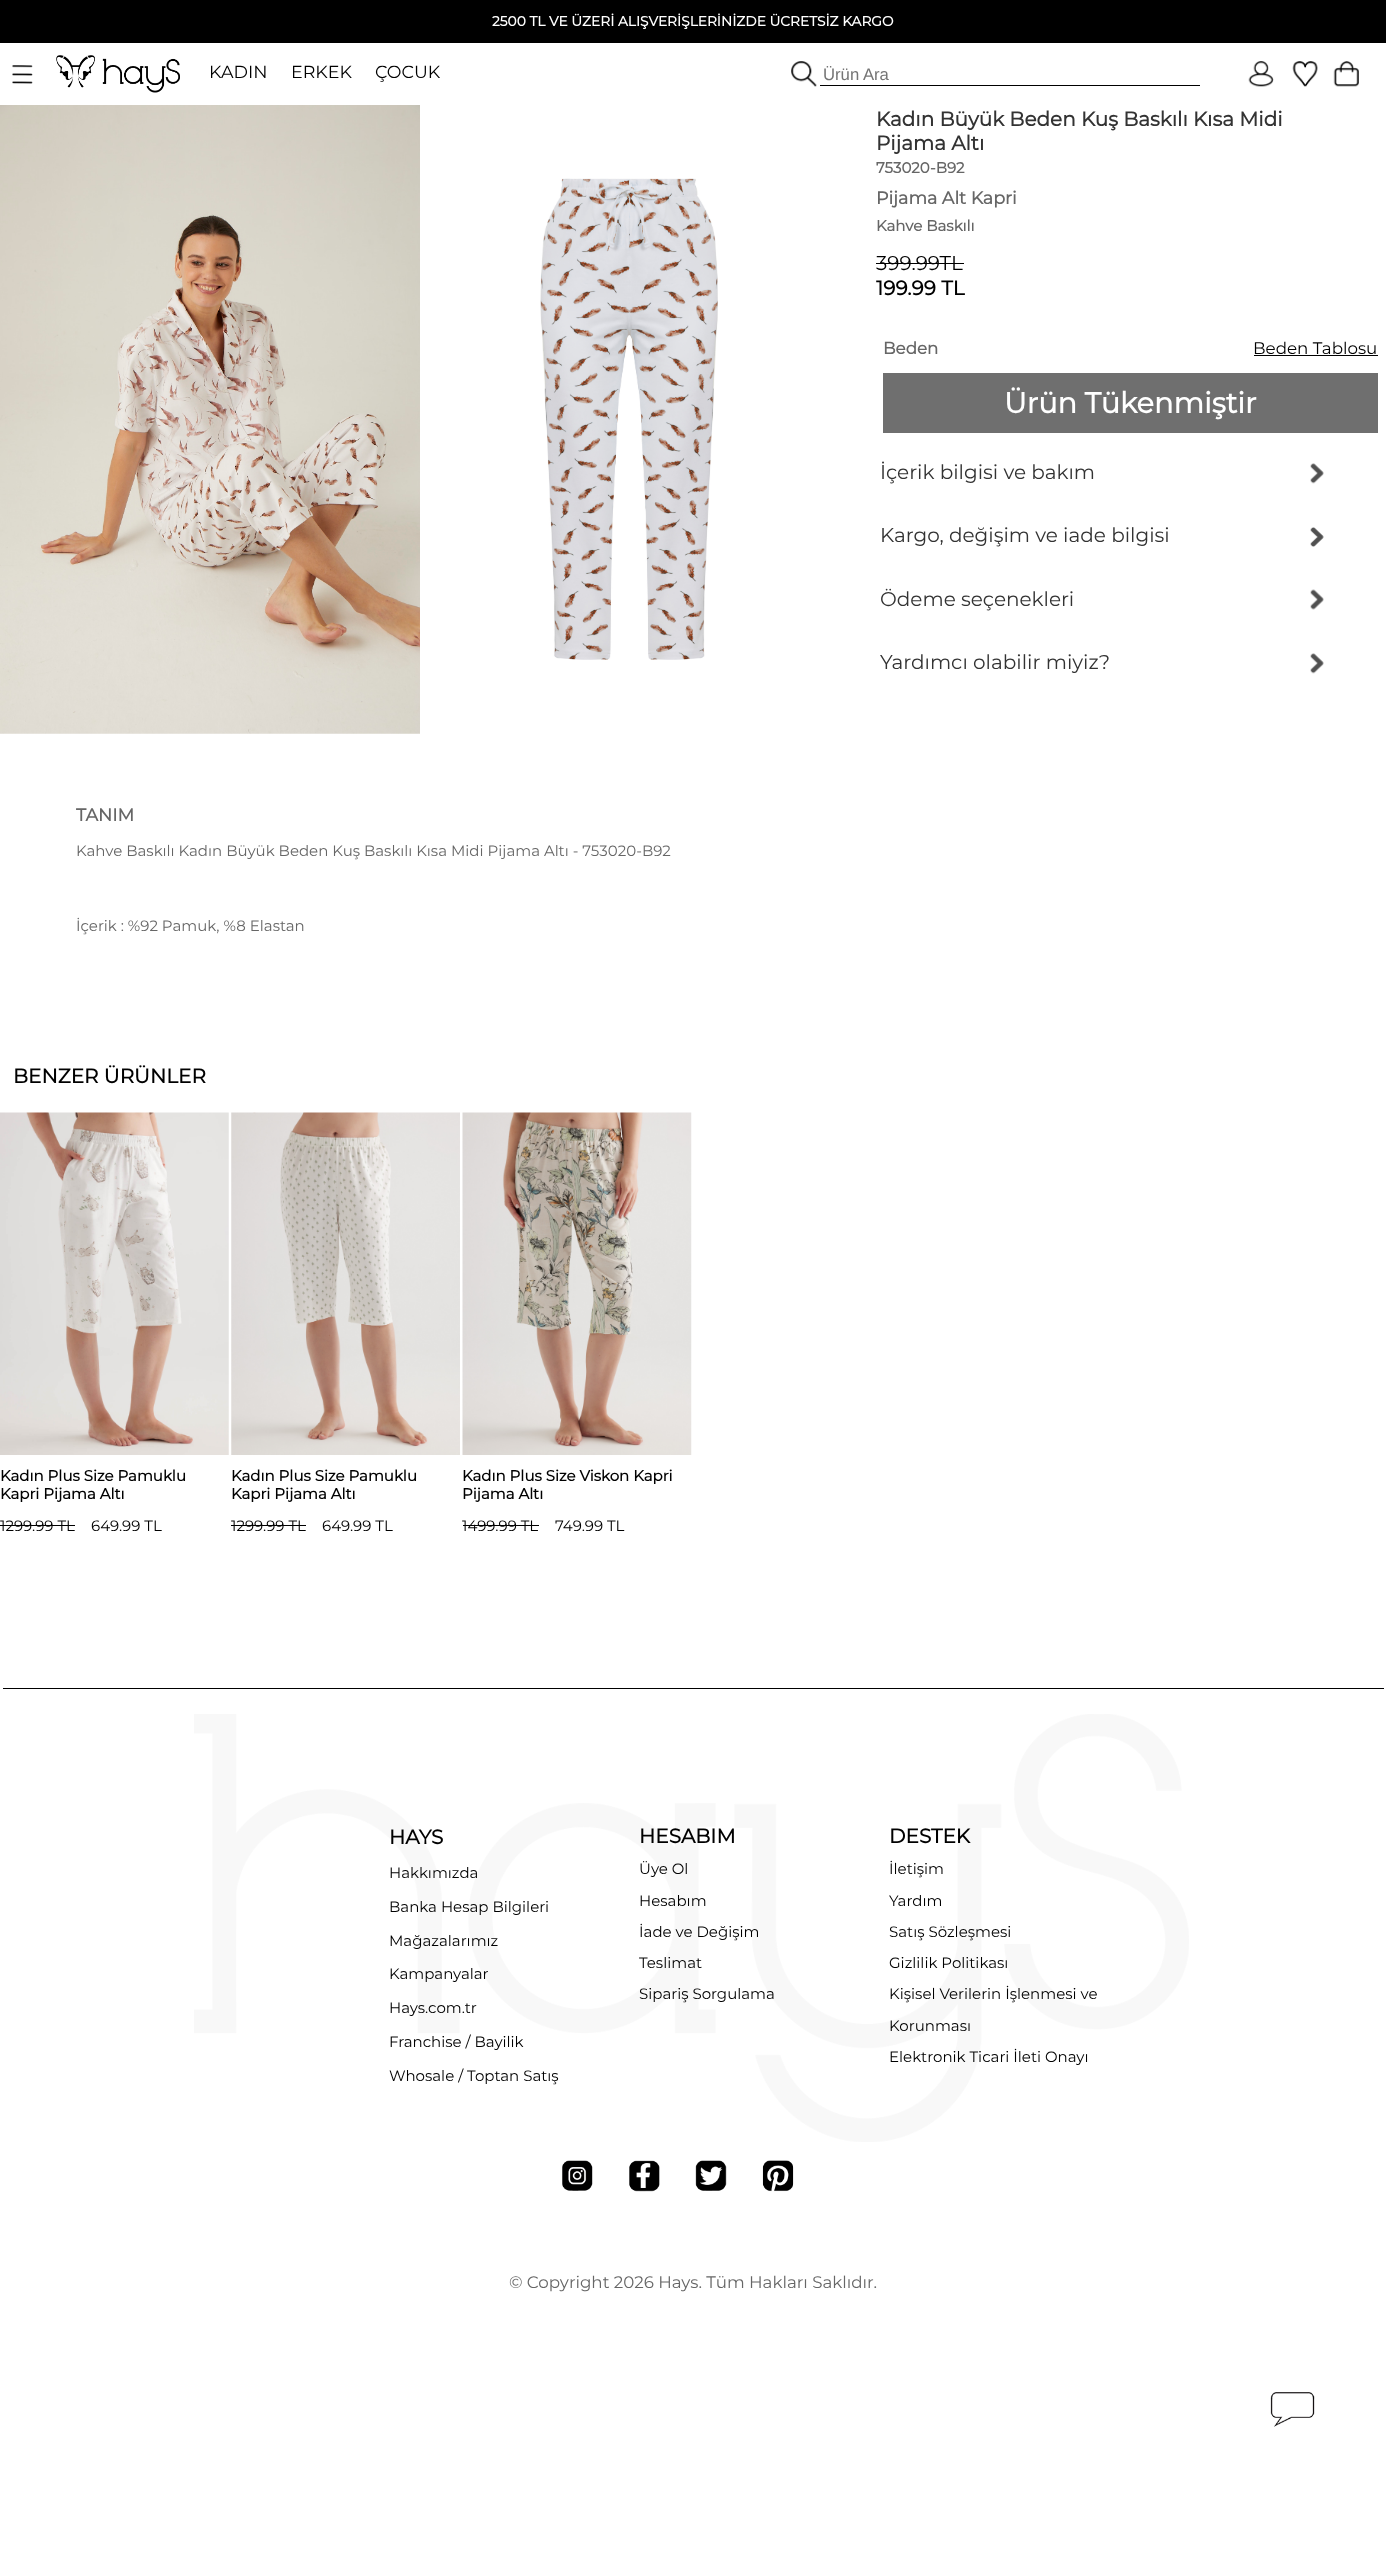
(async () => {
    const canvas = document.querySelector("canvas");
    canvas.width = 1386;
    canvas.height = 2567;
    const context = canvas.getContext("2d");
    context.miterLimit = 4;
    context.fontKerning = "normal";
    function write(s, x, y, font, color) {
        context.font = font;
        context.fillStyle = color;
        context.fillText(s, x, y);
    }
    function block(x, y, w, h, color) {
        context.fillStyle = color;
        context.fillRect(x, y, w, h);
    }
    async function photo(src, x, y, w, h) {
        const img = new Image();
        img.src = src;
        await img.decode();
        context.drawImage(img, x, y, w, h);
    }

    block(0, 0, 1386, 2567, "rgb(255, 255, 255)");
    block(0, 0, 1386, 43, "rgb(0, 0, 0)");
    write("2500 TL VE ÜZERİ ALIŞVERİŞLERİNİZDE ÜCRETSİZ KARGO", 492, 26, "bold 13.75px Montserrat", "rgb(255, 255, 255)");
    await photo("media/1.png", 12, 65, 21, 19);
    await photo("media/2.png", 56, 55, 124, 38);
    write("KADIN", 209, 78, "100 17.5px Montserrat", "rgb(0, 0, 0)");
    write("ERKEK", 291, 78, "100 17.5px Montserrat", "rgb(0, 0, 0)");
    write("ÇOCUK", 375, 78, "100 17.5px Montserrat", "rgb(0, 0, 0)");
    await photo("media/3.png", 791, 61, 26, 26);
    block(820, 85, 380, 1, "rgb(0, 0, 0)");
    write("Ürün Ara", 823, 80, "16.7px Liberation Sans", "rgb(117, 117, 117)");
    await photo("media/4.png", 1248, 61, 26, 26);
    await photo("media/5.png", 1292, 61, 26, 26);
    await photo("media/6.png", 1333, 61, 26, 26);
    await photo("media/7.png", 0, 105, 420, 629);
    await photo("media/8.png", 540, 178, 178, 482);
    write("Kadın Büyük Beden Kuş Baskılı Kısa Midi", 876, 126, "bold 20px Montserrat", "rgb(51, 51, 51)");
    write("Pijama Altı", 876, 150, "bold 20px Montserrat", "rgb(51, 51, 51)");
    write("753020-B92", 876, 173, "bold 15px Montserrat", "rgb(102, 102, 102)");
    write("Pijama Alt Kapri", 876, 204, "bold 17.5px Montserrat", "rgb(102, 102, 102)");
    write("Kahve Baskılı", 876, 231, "bold 15px Montserrat", "rgb(102, 102, 102)");
    write("399.99TL", 876, 270, "100 20px Montserrat", "rgb(0, 0, 0)");
    block(876, 263, 88, 1, "rgb(0, 0, 0)");
    write("199.99 TL", 876, 295, "bold 20px Montserrat", "rgb(0, 0, 0)");
    write("Beden", 883, 354, "bold 16.7px Montserrat", "rgb(102, 102, 102)");
    write("Beden Tablosu", 1253, 354, "100 16.7px Montserrat", "rgb(0, 0, 0)");
    block(1254, 355, 124, 1, "rgb(0, 0, 0)");
    block(883, 373, 495, 60, "rgb(111, 111, 111)");
    write("Ürün Tükenmiştir", 1004, 413, "bold 28.75px Montserrat", "rgb(255, 255, 255)");
    write("İçerik bilgisi ve bakım", 880, 479, "100 20px Montserrat", "rgb(51, 51, 51)");
    await photo("media/9.png", 1310, 463, 14, 21);
    write("Kargo, değişim ve iade bilgisi", 880, 542, "100 20px Montserrat", "rgb(51, 51, 51)");
    await photo("media/10.png", 1310, 527, 14, 20);
    write("Ödeme seçenekleri", 880, 606, "100 20px Montserrat", "rgb(51, 51, 51)");
    await photo("media/11.png", 1310, 589, 14, 21);
    write("Yardımcı olabilir miyiz?", 880, 669, "100 20px Montserrat", "rgb(51, 51, 51)");
    await photo("media/9.png", 1310, 653, 14, 21);
    write("TANIM", 76, 821, "bold 17.5px Montserrat", "rgb(102, 102, 102)");
    write("Kahve Baskılı Kadın Büyük Beden Kuş Baskılı Kısa Midi Pijama Altı - 753020-B92", 76, 856, "100 15px Montserrat", "rgb(102, 102, 102)");
    write("İçerik : %92 Pamuk, %8 Elastan", 76, 931, "100 15px Montserrat", "rgb(102, 102, 102)");
    write("BENZER ÜRÜNLER", 13, 1083, "bold 20px Montserrat", "rgb(0, 0, 0)");
    await photo("media/12.png", 0, 1112, 229, 343);
    write("Kadın Plus Size Pamuklu", 0, 1481, "bold 15px Montserrat", "rgb(0, 0, 0)");
    write("Kapri Pijama Altı", 0, 1499, "bold 15px Montserrat", "rgb(0, 0, 0)");
    write("1299.99 TL", 0, 1531, "100 15px Montserrat", "rgb(0, 0, 0)");
    block(0, 1525, 75, 1, "rgb(0, 0, 0)");
    write("649.99 TL", 91, 1531, "100 15px Montserrat", "rgb(0, 0, 0)");
    await photo("media/13.png", 231, 1112, 229, 343);
    write("Kadın Plus Size Pamuklu", 231, 1481, "bold 15px Montserrat", "rgb(0, 0, 0)");
    write("Kapri Pijama Altı", 231, 1499, "bold 15px Montserrat", "rgb(0, 0, 0)");
    write("1299.99 TL", 231, 1531, "100 15px Montserrat", "rgb(0, 0, 0)");
    block(231, 1525, 75, 1, "rgb(0, 0, 0)");
    write("649.99 TL", 322, 1531, "100 15px Montserrat", "rgb(0, 0, 0)");
    await photo("media/14.png", 462, 1112, 230, 343);
    write("Kadın Plus Size Viskon Kapri", 462, 1481, "bold 15px Montserrat", "rgb(0, 0, 0)");
    write("Pijama Altı", 462, 1499, "bold 15px Montserrat", "rgb(0, 0, 0)");
    write("1499.99 TL", 462, 1531, "100 15px Montserrat", "rgb(0, 0, 0)");
    block(463, 1525, 76, 1, "rgb(0, 0, 0)");
    write("749.99 TL", 555, 1531, "100 15px Montserrat", "rgb(0, 0, 0)");
    await photo("media/15.png", 194, 1714, 995, 428);
    block(3, 1688, 1381, 1, "rgb(0, 0, 0)");
    write("HAYS", 389, 1844, "bold 20px Montserrat", "rgb(0, 0, 0)");
    write("Hakkımızda", 389, 1878, "100 15px Montserrat", "rgb(0, 0, 0)");
    write("Banka Hesap Bilgileri", 389, 1912, "100 15px Montserrat", "rgb(0, 0, 0)");
    write("Mağazalarımız", 389, 1946, "100 15px Montserrat", "rgb(0, 0, 0)");
    write("Kampanyalar", 389, 1979, "100 15px Montserrat", "rgb(0, 0, 0)");
    write("Hays.com.tr", 389, 2013, "100 15px Montserrat", "rgb(0, 0, 0)");
    write("Franchise / Bayilik", 389, 2047, "100 15px Montserrat", "rgb(0, 0, 0)");
    write("Whosale / Toptan Satış", 389, 2081, "100 15px Montserrat", "rgb(0, 0, 0)");
    write("HESABIM", 639, 1843, "bold 20px Montserrat", "rgb(0, 0, 0)");
    write("Üye Ol", 639, 1874, "100 15px Montserrat", "rgb(0, 0, 0)");
    write("Hesabım", 639, 1906, "100 15px Montserrat", "rgb(0, 0, 0)");
    write("İade ve Değişim", 639, 1937, "100 15px Montserrat", "rgb(0, 0, 0)");
    write("Teslimat", 639, 1968, "100 15px Montserrat", "rgb(0, 0, 0)");
    write("Sipariş Sorgulama", 639, 1999, "100 15px Montserrat", "rgb(0, 0, 0)");
    write("DESTEK", 889, 1843, "bold 20px Montserrat", "rgb(0, 0, 0)");
    write("İletişim", 889, 1874, "100 15px Montserrat", "rgb(0, 0, 0)");
    write("Yardım", 889, 1906, "100 15px Montserrat", "rgb(0, 0, 0)");
    write("Satış Sözleşmesi", 889, 1937, "100 15px Montserrat", "rgb(0, 0, 0)");
    write("Gizlilik Politikası", 889, 1968, "100 15px Montserrat", "rgb(0, 0, 0)");
    write("Kişisel Verilerin İşlenmesi ve", 889, 1999, "100 15px Montserrat", "rgb(0, 0, 0)");
    write("Korunması", 889, 2031, "100 15px Montserrat", "rgb(0, 0, 0)");
    write("Elektronik Ticari İleti Onayı", 889, 2062, "100 15px Montserrat", "rgb(0, 0, 0)");
    await photo("media/16.png", 562, 2160, 31, 31);
    await photo("media/17.png", 629, 2160, 31, 32);
    await photo("media/18.png", 695, 2160, 32, 31);
    await photo("media/19.png", 762, 2160, 32, 32);
    write("© Copyright 2026 Hays. Tüm Hakları Saklıdır.", 509, 2288, "100 16.7px Montserrat", "rgb(102, 102, 102)");
    await photo("media/20.png", 1270, 2392, 45, 35);
})();
